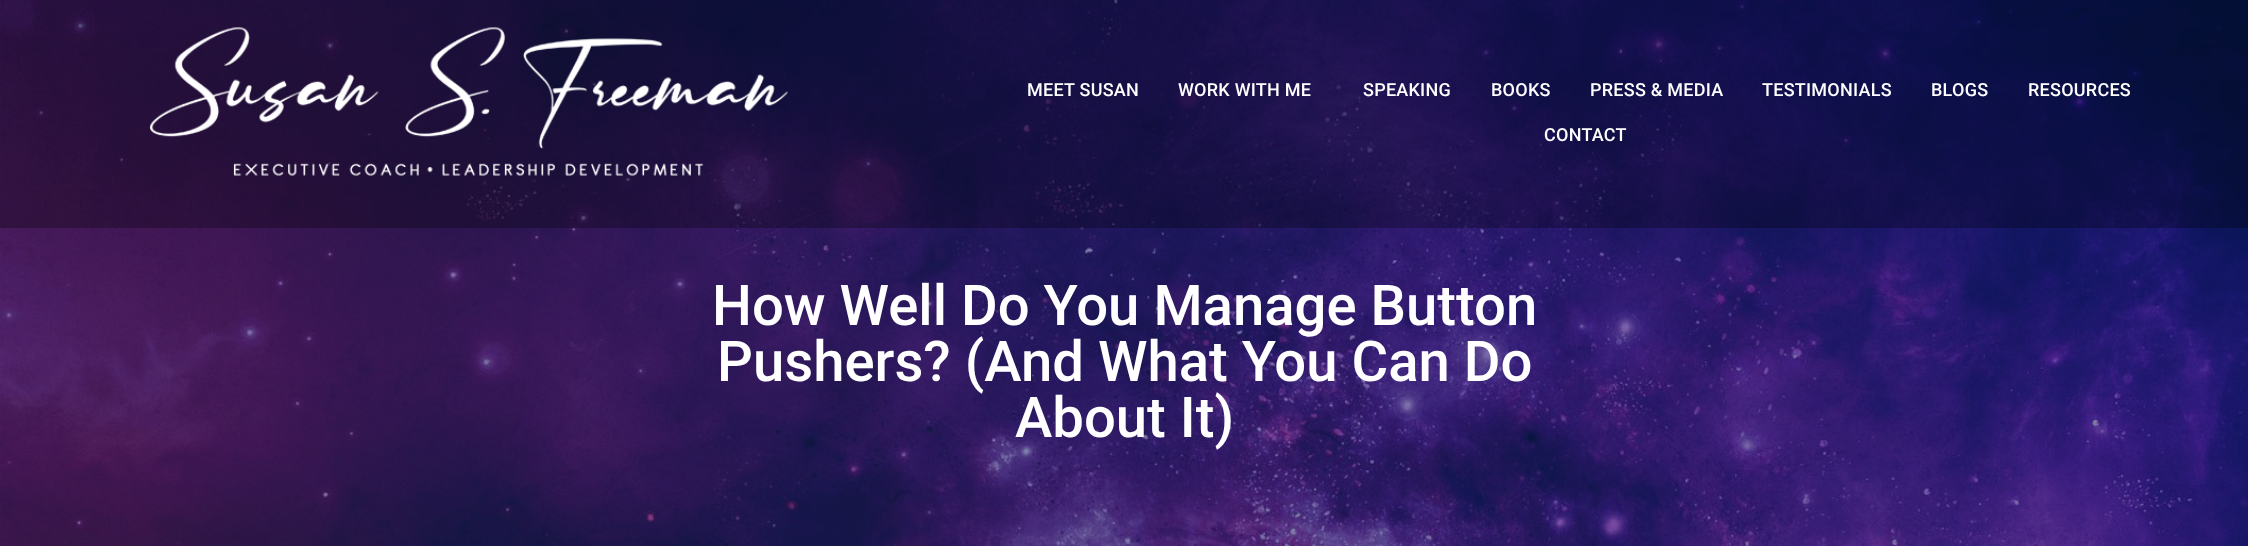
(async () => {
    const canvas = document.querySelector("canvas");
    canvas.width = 2248;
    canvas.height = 546;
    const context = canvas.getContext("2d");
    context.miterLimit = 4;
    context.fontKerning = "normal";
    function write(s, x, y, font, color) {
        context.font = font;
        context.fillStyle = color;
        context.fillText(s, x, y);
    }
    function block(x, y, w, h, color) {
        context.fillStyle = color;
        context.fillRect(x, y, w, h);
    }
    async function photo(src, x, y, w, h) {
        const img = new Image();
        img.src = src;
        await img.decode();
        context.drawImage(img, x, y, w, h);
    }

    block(0, 0, 2248, 546, "rgb(255, 255, 255)");
    await photo("media/2.png", 0, 0, 2248, 546);
    block(0, 0, 2248, 228, "rgba(0, 0, 0, 0.28)");
    await photo("media/1.png", 150, 27, 638, 149);
    context.letterSpacing = "0.25px";
    write("MEET SUSAN", 1027, 96, "500 18px Roboto", "rgb(255, 255, 255)");
    write("WORK WITH ME", 1178, 96, "500 18px Roboto", "rgb(255, 255, 255)");
    write("SPEAKING", 1363, 96, "500 18px Roboto", "rgb(255, 255, 255)");
    write("BOOKS", 1491, 96, "500 18px Roboto", "rgb(255, 255, 255)");
    write("PRESS & MEDIA", 1590, 96, "500 18px Roboto", "rgb(255, 255, 255)");
    write("TESTIMONIALS", 1762, 96, "500 18px Roboto", "rgb(255, 255, 255)");
    write("BLOGS", 1931, 96, "500 18px Roboto", "rgb(255, 255, 255)");
    write("RESOURCES", 2028, 96, "500 18px Roboto", "rgb(255, 255, 255)");
    write("CONTACT", 1544, 141, "500 18px Roboto", "rgb(255, 255, 255)");
    context.letterSpacing = "0px";
    write("How Well Do You Manage Button", 712, 325, "500 56.25px Roboto", "rgb(255, 255, 255)");
    write("Pushers? (And What You Can Do", 717, 381, "500 56.25px Roboto", "rgb(255, 255, 255)");
    write("About It)", 1015, 437, "500 56.25px Roboto", "rgb(255, 255, 255)");
})();
